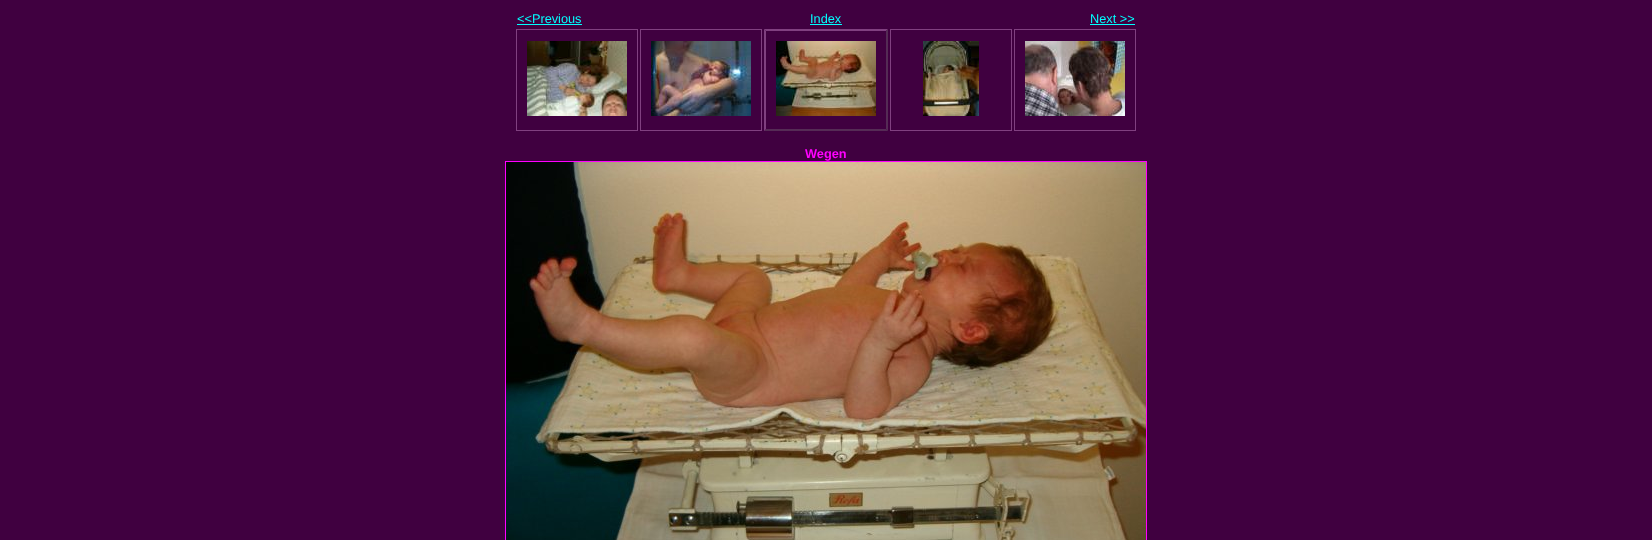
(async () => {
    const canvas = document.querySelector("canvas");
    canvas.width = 1652;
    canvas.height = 540;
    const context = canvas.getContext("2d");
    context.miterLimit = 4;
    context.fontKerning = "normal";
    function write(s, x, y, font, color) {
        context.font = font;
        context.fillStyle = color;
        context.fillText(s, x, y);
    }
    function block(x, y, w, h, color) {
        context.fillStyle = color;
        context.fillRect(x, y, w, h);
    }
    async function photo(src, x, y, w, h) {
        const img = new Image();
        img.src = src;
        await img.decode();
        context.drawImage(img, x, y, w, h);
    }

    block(0, 0, 1652, 540, "rgb(64, 0, 64)");
    write("<<Previous", 517, 23, "12.75px Liberation Sans", "rgb(0, 255, 255)");
    block(517, 24, 65, 1, "rgb(0, 255, 255)");
    write("Index", 810, 23, "12.75px Liberation Sans", "rgb(0, 255, 255)");
    block(810, 24, 32, 1, "rgb(0, 255, 255)");
    write("Next >>", 1090, 23, "12.75px Liberation Sans", "rgb(0, 255, 255)");
    block(1090, 24, 45, 1, "rgb(0, 255, 255)");
    context.strokeStyle = "rgb(128, 64, 128)";
    context.strokeRect(516.5, 29.5, 121, 101);
    await photo("media/1.png", 527, 41, 100, 75);
    context.strokeRect(640.5, 29.5, 121, 101);
    await photo("media/2.png", 651, 41, 100, 75);
    context.fillStyle = "rgb(128, 64, 128)";
    context.beginPath();
    context.moveTo(764, 29);
    context.lineTo(888, 29);
    context.lineTo(886, 31);
    context.lineTo(766, 31);
    context.closePath();
    context.fill();
    context.fillStyle = "rgb(85, 43, 85)";
    context.beginPath();
    context.moveTo(888, 29);
    context.lineTo(888, 131);
    context.lineTo(886, 129);
    context.lineTo(886, 31);
    context.closePath();
    context.fill();
    context.beginPath();
    context.moveTo(888, 131);
    context.lineTo(764, 131);
    context.lineTo(766, 129);
    context.lineTo(886, 129);
    context.closePath();
    context.fill();
    context.fillStyle = "rgb(128, 64, 128)";
    context.beginPath();
    context.moveTo(764, 131);
    context.lineTo(764, 29);
    context.lineTo(766, 31);
    context.lineTo(766, 129);
    context.closePath();
    context.fill();
    await photo("media/3.png", 776, 41, 100, 75);
    context.strokeRect(890.5, 29.5, 121, 101);
    await photo("media/4.png", 923, 41, 56, 75);
    context.strokeRect(1014.5, 29.5, 121, 101);
    await photo("media/5.png", 1025, 41, 100, 75);
    write("Wegen", 805, 158, "bold 12.75px Liberation Sans", "rgb(255, 0, 255)");
    context.strokeStyle = "rgb(255, 0, 255)";
    context.strokeRect(505.5, 161.5, 641, 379);
    await photo("media/6.png", 506, 162, 640, 378);
})();
